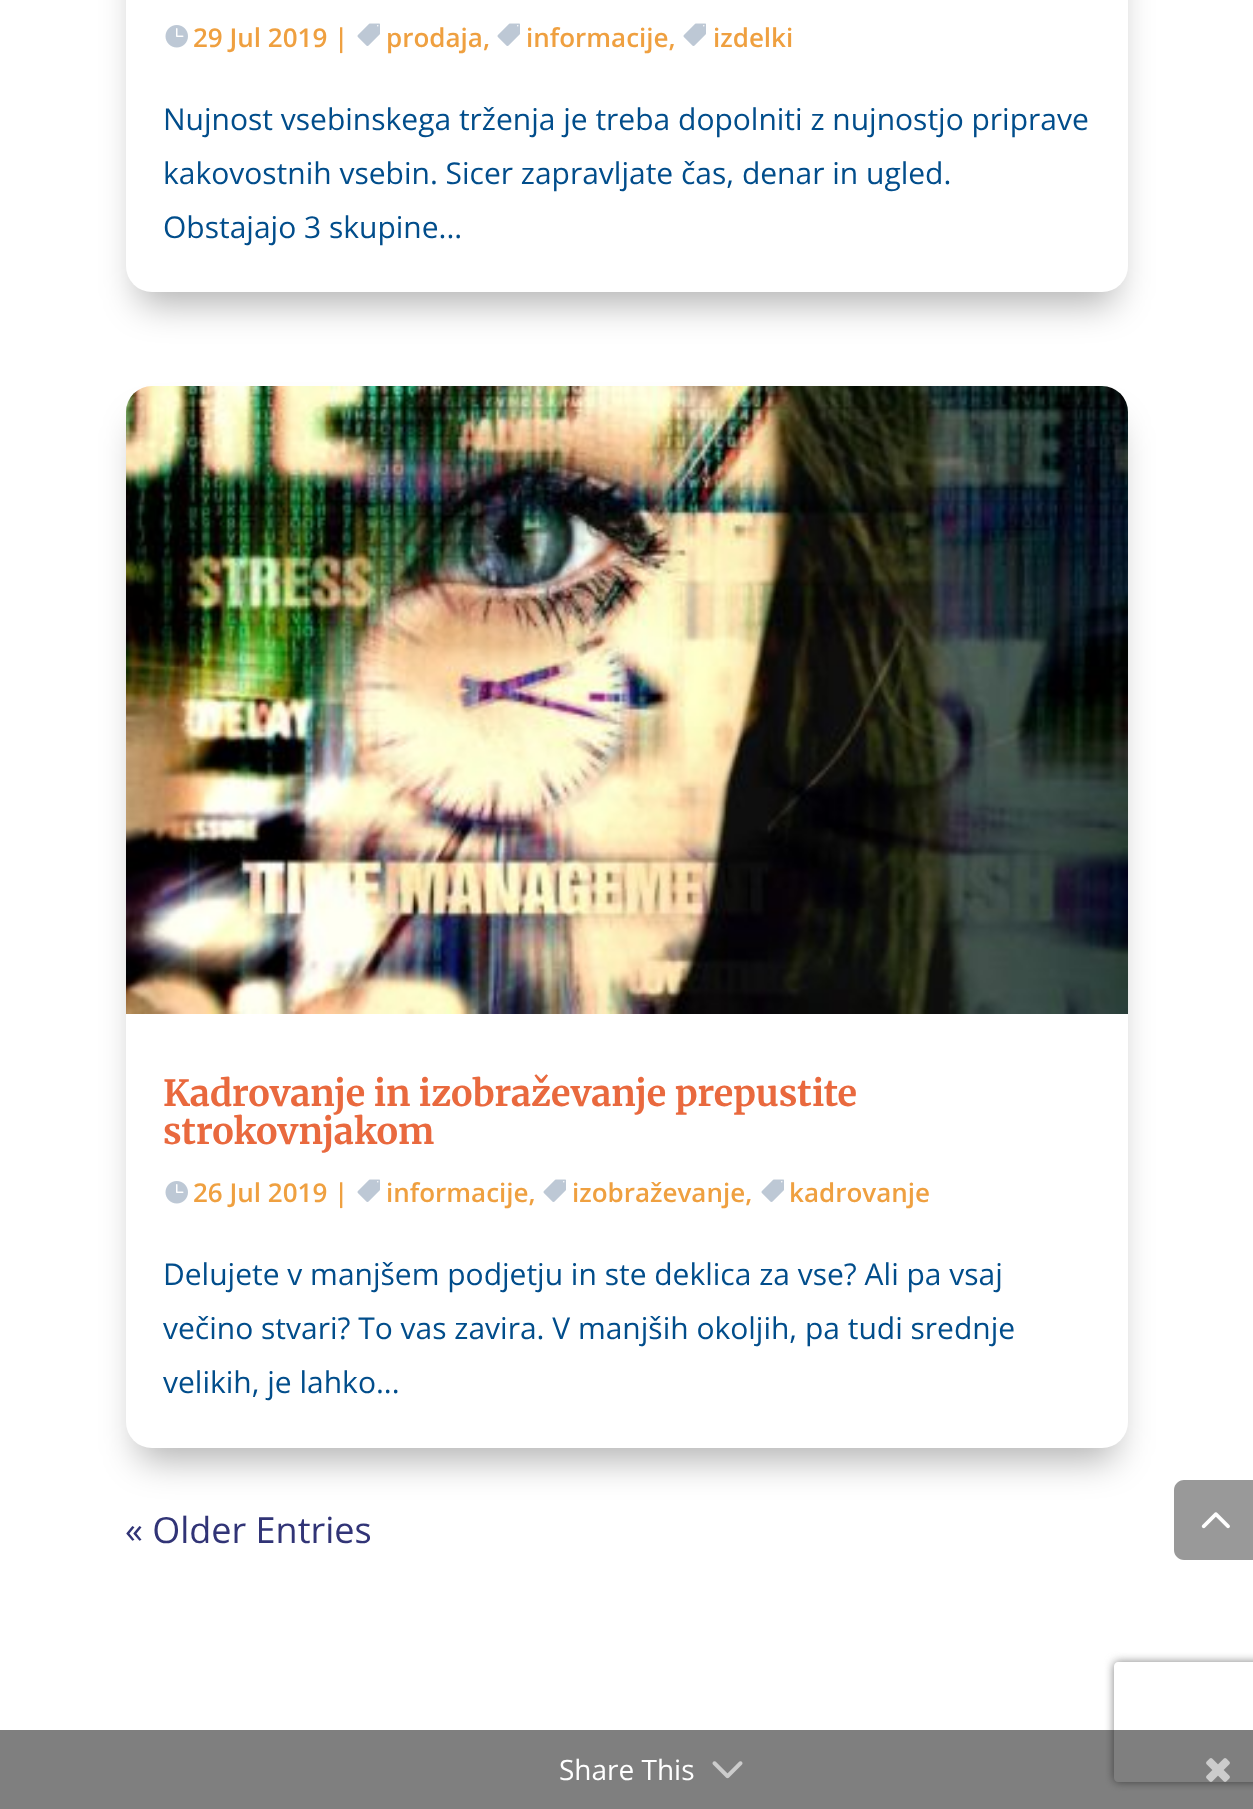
(async () => {
    const canvas = document.querySelector("canvas");
    canvas.width = 1253;
    canvas.height = 1809;
    const context = canvas.getContext("2d");
    context.miterLimit = 4;
    context.fontKerning = "normal";
    function write(s, x, y, font, color) {
        context.font = font;
        context.fillStyle = color;
        context.fillText(s, x, y);
    }
    function block(x, y, w, h, color) {
        context.fillStyle = color;
        context.fillRect(x, y, w, h);
    }
    function card(x, y, w, h, r, color) {
        context.fillStyle = color;
        context.beginPath();
        context.roundRect(x, y, w, h, r);
        context.fill();
    }
    async function photo(src, x, y, w, h) {
        const img = new Image();
        img.src = src;
        await img.decode();
        context.drawImage(img, x, y, w, h);
    }

    block(0, 0, 1253, 1809, "rgb(255, 255, 255)");
    context.fillStyle = "rgba(0, 0, 0, 0.3)";
    context.filter = "blur(18px)";
    context.beginPath();
    context.roundRect(138, -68, 978, 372, 14);
    context.fill();
    context.filter = "none";
    card(126, -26, 1002, 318, 26, "rgb(255, 255, 255)");
    await photo("media/1.png", 165, 25, 23, 23);
    write("29 Jul 2019 |", 193, 47, "600 26px Open Sans", "rgb(239, 160, 64)");
    await photo("media/2.png", 357, 23, 23, 23);
    write("prodaja,", 386, 47, "600 26px Open Sans", "rgb(239, 160, 64)");
    await photo("media/2.png", 497, 23, 23, 23);
    write("informacije,", 526, 47, "600 26px Open Sans", "rgb(239, 160, 64)");
    await photo("media/2.png", 683, 23, 23, 23);
    write("izdelki", 713, 47, "600 26px Open Sans", "rgb(239, 160, 64)");
    write("Nujnost vsebinskega trženja je treba dopolniti z nujnostjo priprave", 163, 130, "30px Open Sans", "rgb(1, 77, 139)");
    write("kakovostnih vsebin. Sicer zapravljate čas, denar in ugled.", 163, 184, "30px Open Sans", "rgb(1, 77, 139)");
    write("Obstajajo 3 skupine...", 163, 238, "30px Open Sans", "rgb(1, 77, 139)");
    context.fillStyle = "rgba(0, 0, 0, 0.3)";
    context.filter = "blur(18px)";
    context.beginPath();
    context.roundRect(138, 422, 978, 1038, 14);
    context.fill();
    context.filter = "none";
    card(126, 386, 1002, 1062, 26, "rgb(255, 255, 255)");
    await photo("media/3.png", 126, 386, 1002, 628);
    write("Kadrovanje in izobraževanje prepustite", 163, 1106, "300 36px Merriweather", "rgb(233, 105, 62)");
    write("strokovnjakom", 163, 1144, "300 36px Merriweather", "rgb(233, 105, 62)");
    await photo("media/1.png", 165, 1181, 23, 23);
    write("26 Jul 2019 |", 193, 1202, "600 26px Open Sans", "rgb(239, 160, 64)");
    await photo("media/2.png", 357, 1179, 23, 23);
    write("informacije,", 386, 1202, "600 26px Open Sans", "rgb(239, 160, 64)");
    await photo("media/2.png", 543, 1179, 23, 23);
    write("izobraževanje,", 572, 1202, "600 26px Open Sans", "rgb(239, 160, 64)");
    await photo("media/2.png", 761, 1179, 23, 23);
    write("kadrovanje", 789, 1202, "600 26px Open Sans", "rgb(239, 160, 64)");
    write("Delujete v manjšem podjetju in ste deklica za vse? Ali pa vsaj", 163, 1285, "30px Open Sans", "rgb(1, 77, 139)");
    write("večino stvari? To vas zavira. V manjših okoljih, pa tudi srednje", 163, 1339, "30px Open Sans", "rgb(1, 77, 139)");
    write("velikih, je lahko...", 163, 1393, "30px Open Sans", "rgb(1, 77, 139)");
    write("« Older Entries", 125, 1543, "36px Open Sans", "rgb(49, 52, 118)");
    context.fillStyle = "rgb(153, 153, 153)";
    context.beginPath();
    context.moveTo(1184, 1480);
    context.lineTo(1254, 1480);
    context.lineTo(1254, 1560);
    context.lineTo(1184, 1560);
    context.bezierCurveTo(1178.5, 1560, 1174, 1555.5, 1174, 1550);
    context.lineTo(1174, 1490);
    context.bezierCurveTo(1174, 1484.5, 1178.5, 1480, 1184, 1480);
    context.closePath();
    context.fill();
    await photo("media/4.png", 1201, 1512, 29, 17);
    context.save();
    context.beginPath();
    context.moveTo(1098, 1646);
    context.lineTo(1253, 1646);
    context.lineTo(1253, 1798);
    context.lineTo(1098, 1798);
    context.closePath();
    context.moveTo(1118, 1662);
    context.lineTo(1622, 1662);
    context.bezierCurveTo(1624, 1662, 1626, 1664, 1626, 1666);
    context.lineTo(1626, 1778);
    context.bezierCurveTo(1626, 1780, 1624, 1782, 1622, 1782);
    context.lineTo(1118, 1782);
    context.bezierCurveTo(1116, 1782, 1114, 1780, 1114, 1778);
    context.lineTo(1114, 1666);
    context.bezierCurveTo(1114, 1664, 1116, 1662, 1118, 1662);
    context.closePath();
    context.clip("evenodd");
    context.fillStyle = "rgb(128, 128, 128)";
    context.filter = "blur(5px)";
    context.beginPath();
    context.roundRect(1114, 1662, 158, 120, 4);
    context.fill();
    context.filter = "none";
    context.restore();
    block(0, 1730, 1253, 79, "rgba(0, 0, 0, 0.5)");
    write("Share This", 559, 1780, "28px Open Sans", "rgb(255, 255, 255)");
    await photo("media/5.png", 712, 1761, 31, 18);
    await photo("media/6.png", 1206, 1758, 24, 24);
})();
